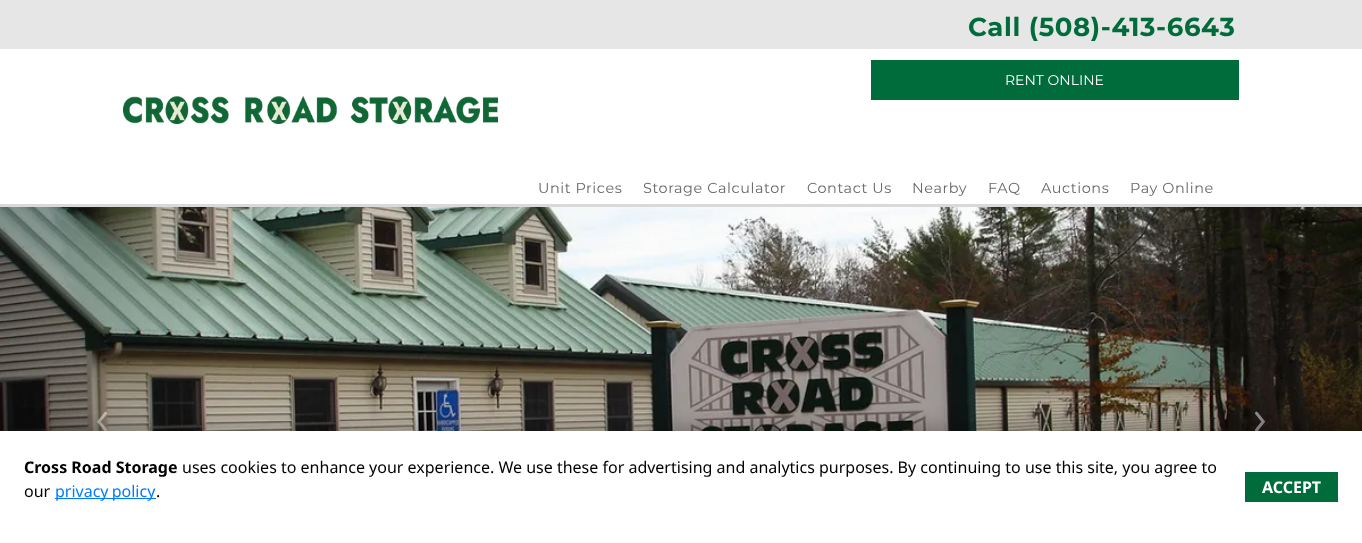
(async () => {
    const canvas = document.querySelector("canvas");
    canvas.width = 1362;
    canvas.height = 543;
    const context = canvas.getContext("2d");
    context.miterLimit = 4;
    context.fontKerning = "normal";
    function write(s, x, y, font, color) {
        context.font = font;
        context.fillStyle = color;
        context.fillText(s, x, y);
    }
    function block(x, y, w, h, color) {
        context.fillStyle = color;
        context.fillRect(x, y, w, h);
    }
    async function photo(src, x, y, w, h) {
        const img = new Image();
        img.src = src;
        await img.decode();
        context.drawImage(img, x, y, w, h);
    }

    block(0, 0, 1362, 543, "rgb(255, 255, 255)");
    block(0, 0, 1362, 49, "rgb(230, 230, 230)");
    context.letterSpacing = "0.6px";
    write("Call (508)-413-6643", 968, 36, "bold 26px Montserrat", "rgb(0, 108, 59)");
    block(871, 60, 368, 40, "rgb(0, 108, 59)");
    context.letterSpacing = "0px";
    write("RENT ONLINE", 1005, 85, "14px Montserrat", "rgb(255, 255, 255)");
    await photo("media/1.png", 123, 96, 375, 28);
    block(0, 204, 1362, 3, "rgb(217, 217, 217)");
    context.letterSpacing = "0.6px";
    write("Unit Prices", 538, 193, "14.4px Montserrat", "rgb(104, 104, 104)");
    write("Storage Calculator", 643, 193, "14.4px Montserrat", "rgb(104, 104, 104)");
    write("Contact Us", 807, 193, "14.4px Montserrat", "rgb(104, 104, 104)");
    write("Nearby", 912, 193, "14.4px Montserrat", "rgb(104, 104, 104)");
    write("FAQ", 988, 193, "14.4px Montserrat", "rgb(104, 104, 104)");
    write("Auctions", 1041, 193, "14.4px Montserrat", "rgb(104, 104, 104)");
    write("Pay Online", 1130, 193, "14.4px Montserrat", "rgb(104, 104, 104)");
    await photo("media/2.png", 0, 207, 1362, 224);
    await photo("media/3.png", 97, 411, 11, 20);
    await photo("media/4.png", 1255, 411, 11, 20);
    context.fillStyle = "rgba(0, 0, 0, 0.25)";
    context.filter = "blur(10px)";
    context.beginPath();
    context.rect(0, 427, 1362, 112);
    context.fill();
    context.filter = "none";
    block(0, 431, 1362, 112, "rgb(255, 255, 255)");
    context.letterSpacing = "0px";
    write("Cross Road Storage", 24, 473, "bold 16px Noto Sans", "rgb(0, 0, 0)");
    write("uses cookies to enhance your experience. We use these for advertising and analytics purposes. By continuing to use this site, you agree to", 182, 473, "16px Noto Sans", "rgb(0, 0, 0)");
    write("our", 24, 497, "16px Noto Sans", "rgb(0, 0, 0)");
    block(55, 498, 101, 1, "rgb(0, 123, 255)");
    context.wordSpacing = "-1px";
    write("privacy policy", 55, 497, "16px Noto Sans", "rgb(0, 123, 255)");
    context.wordSpacing = "0px";
    write(".", 156, 497, "16px Noto Sans", "rgb(0, 0, 0)");
    block(1245, 472, 93, 30, "rgb(0, 108, 59)");
    write("ACCEPT", 1262, 493, "bold 16px Noto Sans", "rgb(255, 255, 255)");
})();
